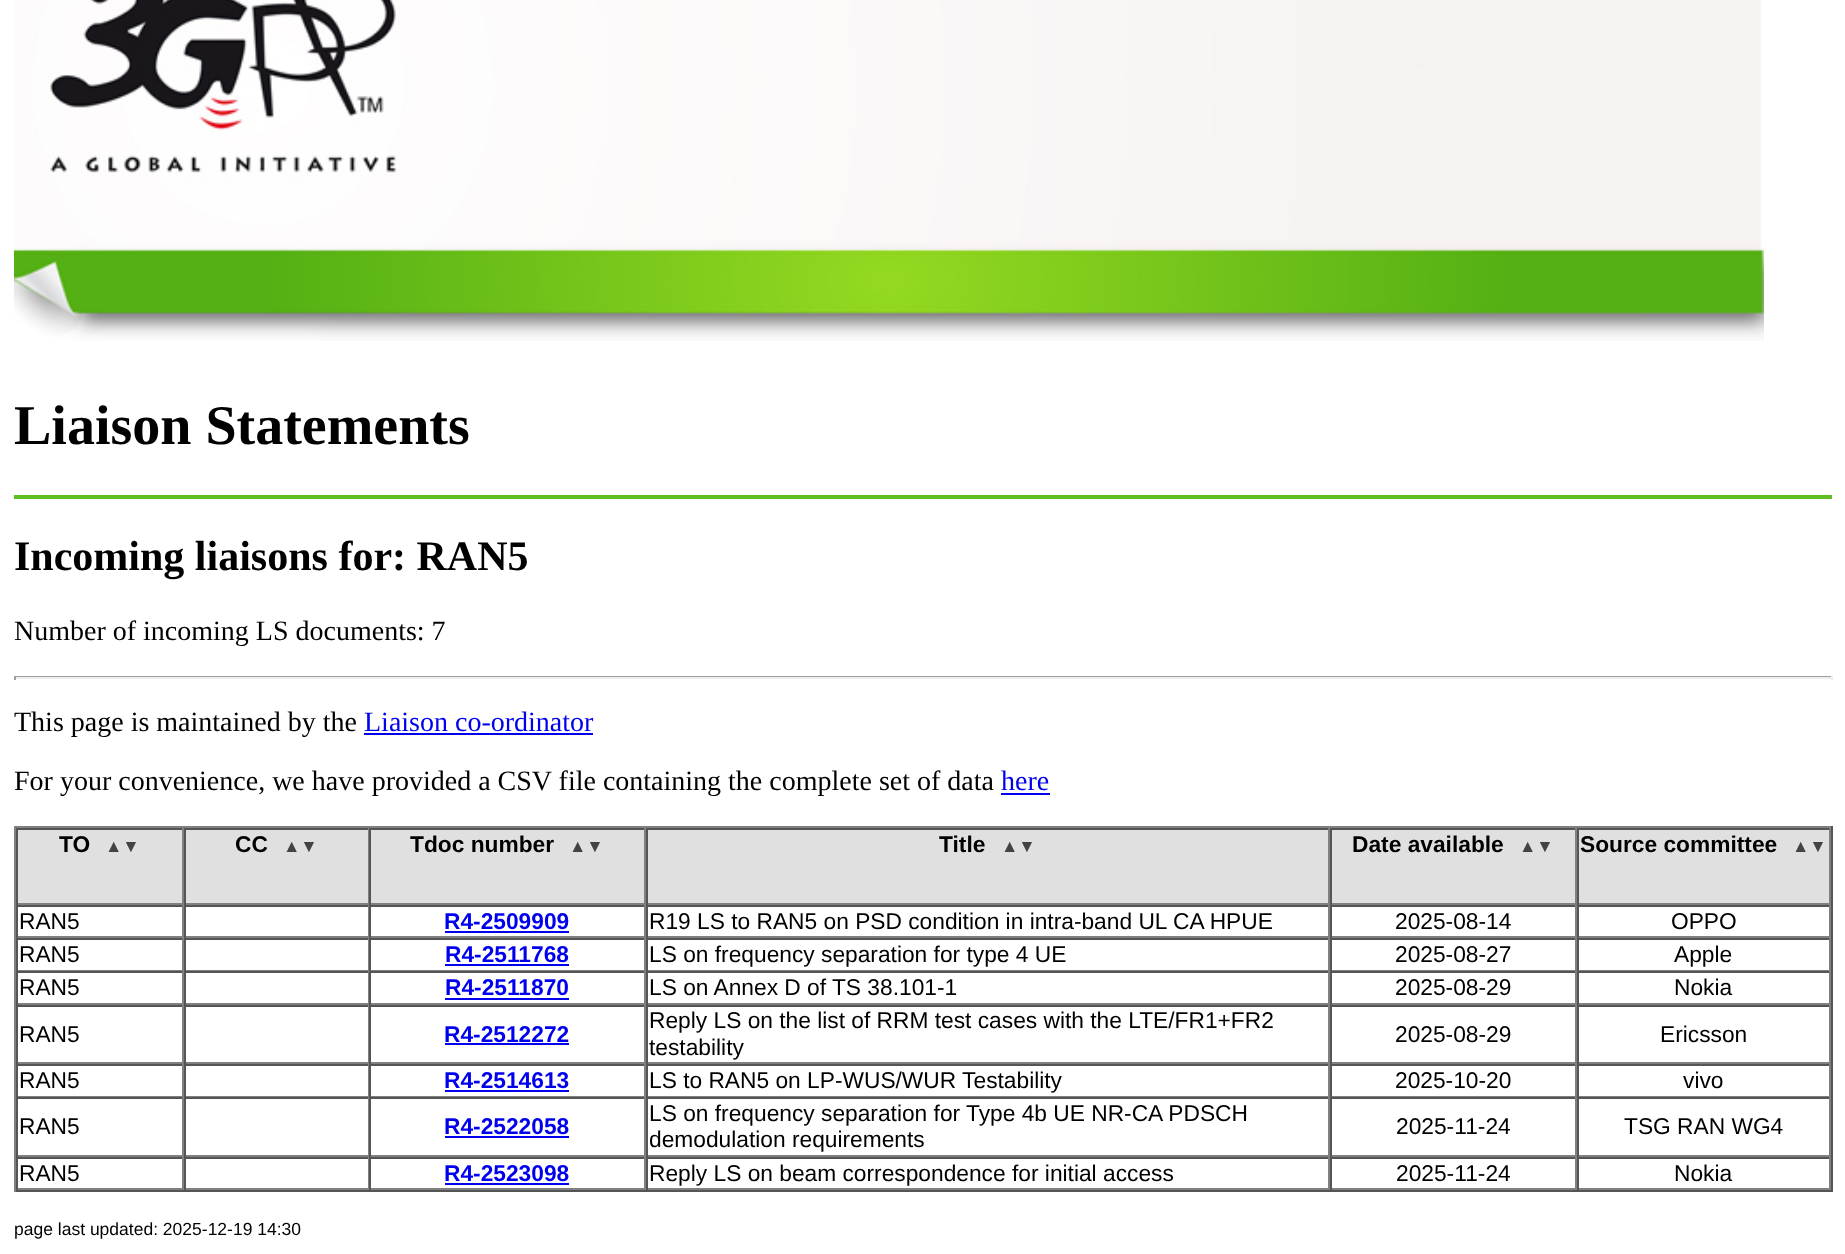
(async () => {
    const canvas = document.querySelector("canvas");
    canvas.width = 1845;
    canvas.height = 1254;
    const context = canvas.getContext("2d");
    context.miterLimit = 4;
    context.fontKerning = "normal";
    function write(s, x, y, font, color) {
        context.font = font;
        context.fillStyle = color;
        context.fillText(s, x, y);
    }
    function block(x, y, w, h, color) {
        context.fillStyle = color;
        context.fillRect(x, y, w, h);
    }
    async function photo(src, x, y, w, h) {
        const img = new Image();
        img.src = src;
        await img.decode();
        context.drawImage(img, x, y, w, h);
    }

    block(0, 0, 1845, 1254, "rgb(255, 255, 255)");
    await photo("media/1.png", 14, 0, 1750, 341);
    write("Liaison Statements", 14, 444, "bold 56px Liberation Serif", "rgb(0, 0, 0)");
    block(14, 495, 1818, 4, "rgb(93, 191, 34)");
    write("Incoming liaisons for: RAN5", 14, 570, "bold 42px Liberation Serif", "rgb(0, 0, 0)");
    write("Number of incoming LS documents: 7", 14, 640, "28px Liberation Serif", "rgb(0, 0, 0)");
    block(14, 676, 1818, 1, "rgb(159, 159, 159)");
    block(1831, 676, 2, 4, "rgb(238, 238, 238)");
    block(14, 677, 1818, 2, "rgb(238, 238, 238)");
    block(14, 676, 2, 4, "rgb(159, 159, 159)");
    write("This page is maintained by the", 14, 731, "28px Liberation Serif", "rgb(0, 0, 0)");
    write("Liaison co-ordinator", 364, 731, "28px Liberation Serif", "rgb(0, 0, 238)");
    block(364, 733, 229, 2, "rgb(0, 0, 238)");
    write("For your convenience, we have provided a CSV file containing the complete set of data", 14, 790, "28px Liberation Serif", "rgb(0, 0, 0)");
    write("here", 1001, 790, "28px Liberation Serif", "rgb(0, 0, 238)");
    block(1001, 793, 49, 2, "rgb(0, 0, 238)");
    block(14, 826, 1818, 2, "rgb(128, 128, 128)");
    block(1831, 826, 2, 366, "rgb(85, 85, 85)");
    block(14, 1190, 1818, 2, "rgb(85, 85, 85)");
    block(14, 826, 2, 366, "rgb(128, 128, 128)");
    block(18, 830, 164, 73, "rgb(224, 224, 224)");
    block(16, 828, 1815, 2, "rgb(85, 85, 85)");
    block(182, 828, 2, 77, "rgb(128, 128, 128)");
    block(16, 903, 168, 2, "rgb(128, 128, 128)");
    block(16, 828, 2, 77, "rgb(85, 85, 85)");
    write("TO", 59, 852, "bold 22.75px Liberation Sans", "rgb(0, 0, 0)");
    write("▲▼", 105, 852, "bold 17.5px Liberation Serif", "rgb(67, 67, 67)");
    block(186, 830, 182, 73, "rgb(224, 224, 224)");
    block(368, 828, 1, 77, "rgb(128, 128, 128)");
    block(184, 903, 185, 2, "rgb(128, 128, 128)");
    block(184, 828, 2, 77, "rgb(85, 85, 85)");
    write("CC", 235, 852, "bold 22.75px Liberation Sans", "rgb(0, 0, 0)");
    write("▲▼", 283, 852, "bold 17.5px Liberation Serif", "rgb(67, 67, 67)");
    block(371, 830, 273, 73, "rgb(224, 224, 224)");
    block(644, 828, 2, 77, "rgb(128, 128, 128)");
    block(369, 903, 277, 2, "rgb(128, 128, 128)");
    block(369, 828, 2, 77, "rgb(85, 85, 85)");
    write("Tdoc number", 410, 852, "bold 22.75px Liberation Sans", "rgb(0, 0, 0)");
    write("▲▼", 569, 852, "bold 17.5px Liberation Serif", "rgb(67, 67, 67)");
    block(648, 830, 680, 73, "rgb(224, 224, 224)");
    block(1328, 828, 2, 77, "rgb(128, 128, 128)");
    block(646, 903, 684, 2, "rgb(128, 128, 128)");
    block(646, 828, 2, 77, "rgb(85, 85, 85)");
    write("Title", 939, 852, "bold 22.75px Liberation Sans", "rgb(0, 0, 0)");
    write("▲▼", 1001, 852, "bold 17.5px Liberation Serif", "rgb(67, 67, 67)");
    block(1332, 830, 243, 73, "rgb(224, 224, 224)");
    block(1575, 828, 2, 77, "rgb(128, 128, 128)");
    block(1330, 903, 247, 2, "rgb(128, 128, 128)");
    block(1330, 828, 2, 77, "rgb(85, 85, 85)");
    write("Date available", 1352, 852, "bold 22.75px Liberation Sans", "rgb(0, 0, 0)");
    write("▲▼", 1519, 852, "bold 17.5px Liberation Serif", "rgb(67, 67, 67)");
    block(1579, 830, 250, 73, "rgb(224, 224, 224)");
    block(1829, 828, 2, 77, "rgb(128, 128, 128)");
    block(1577, 903, 254, 2, "rgb(128, 128, 128)");
    block(1577, 828, 2, 77, "rgb(85, 85, 85)");
    write("Source committee", 1580, 852, "bold 22.75px Liberation Sans", "rgb(0, 0, 0)");
    write("▲▼", 1792, 852, "bold 17.5px Liberation Serif", "rgb(67, 67, 67)");
    block(16, 905, 1815, 2, "rgb(85, 85, 85)");
    block(182, 905, 2, 33, "rgb(128, 128, 128)");
    block(16, 936, 168, 2, "rgb(128, 128, 128)");
    block(16, 905, 2, 33, "rgb(85, 85, 85)");
    write("RAN5", 19, 929, "22.75px Liberation Sans", "rgb(0, 0, 0)");
    block(368, 905, 1, 33, "rgb(128, 128, 128)");
    block(184, 936, 185, 2, "rgb(128, 128, 128)");
    block(184, 905, 2, 33, "rgb(85, 85, 85)");
    block(644, 905, 2, 33, "rgb(128, 128, 128)");
    block(369, 936, 277, 2, "rgb(128, 128, 128)");
    block(369, 905, 2, 33, "rgb(85, 85, 85)");
    write("R4-2509909", 444, 929, "bold 22.75px Liberation Sans", "rgb(0, 0, 238)");
    block(445, 931, 124, 2, "rgb(0, 0, 238)");
    block(1328, 905, 2, 33, "rgb(128, 128, 128)");
    block(646, 936, 684, 2, "rgb(128, 128, 128)");
    block(646, 905, 2, 33, "rgb(85, 85, 85)");
    write("R19 LS to RAN5 on PSD condition in intra-band UL CA HPUE", 649, 929, "22.75px Liberation Sans", "rgb(0, 0, 0)");
    block(1575, 905, 2, 33, "rgb(128, 128, 128)");
    block(1330, 936, 247, 2, "rgb(128, 128, 128)");
    block(1330, 905, 2, 33, "rgb(85, 85, 85)");
    write("2025-08-14", 1395, 929, "22.75px Liberation Sans", "rgb(0, 0, 0)");
    block(1829, 905, 2, 33, "rgb(128, 128, 128)");
    block(1577, 936, 254, 2, "rgb(128, 128, 128)");
    block(1577, 905, 2, 33, "rgb(85, 85, 85)");
    write("OPPO", 1671, 929, "22.75px Liberation Sans", "rgb(0, 0, 0)");
    block(16, 938, 1815, 2, "rgb(85, 85, 85)");
    block(182, 938, 2, 33, "rgb(128, 128, 128)");
    block(16, 970, 168, 1, "rgb(128, 128, 128)");
    block(16, 938, 2, 33, "rgb(85, 85, 85)");
    write("RAN5", 19, 962, "22.75px Liberation Sans", "rgb(0, 0, 0)");
    block(368, 938, 1, 33, "rgb(128, 128, 128)");
    block(184, 970, 185, 1, "rgb(128, 128, 128)");
    block(184, 938, 2, 33, "rgb(85, 85, 85)");
    block(644, 938, 2, 33, "rgb(128, 128, 128)");
    block(369, 970, 277, 1, "rgb(128, 128, 128)");
    block(369, 938, 2, 33, "rgb(85, 85, 85)");
    write("R4-2511768", 445, 962, "bold 22.75px Liberation Sans", "rgb(0, 0, 238)");
    block(445, 964, 124, 2, "rgb(0, 0, 238)");
    block(1328, 938, 2, 33, "rgb(128, 128, 128)");
    block(646, 970, 684, 1, "rgb(128, 128, 128)");
    block(646, 938, 2, 33, "rgb(85, 85, 85)");
    write("LS on frequency separation for type 4 UE", 649, 962, "22.75px Liberation Sans", "rgb(0, 0, 0)");
    block(1575, 938, 2, 33, "rgb(128, 128, 128)");
    block(1330, 970, 247, 1, "rgb(128, 128, 128)");
    block(1330, 938, 2, 33, "rgb(85, 85, 85)");
    write("2025-08-27", 1395, 962, "22.75px Liberation Sans", "rgb(0, 0, 0)");
    block(1829, 938, 2, 33, "rgb(128, 128, 128)");
    block(1577, 970, 254, 1, "rgb(128, 128, 128)");
    block(1577, 938, 2, 33, "rgb(85, 85, 85)");
    write("Apple", 1674, 962, "22.75px Liberation Sans", "rgb(0, 0, 0)");
    block(16, 971, 1815, 2, "rgb(85, 85, 85)");
    block(182, 971, 2, 34, "rgb(128, 128, 128)");
    block(16, 1003, 168, 2, "rgb(128, 128, 128)");
    block(16, 971, 2, 34, "rgb(85, 85, 85)");
    write("RAN5", 19, 995, "22.75px Liberation Sans", "rgb(0, 0, 0)");
    block(368, 971, 1, 34, "rgb(128, 128, 128)");
    block(184, 1003, 185, 2, "rgb(128, 128, 128)");
    block(184, 971, 2, 34, "rgb(85, 85, 85)");
    block(644, 971, 2, 34, "rgb(128, 128, 128)");
    block(369, 1003, 277, 2, "rgb(128, 128, 128)");
    block(369, 971, 2, 34, "rgb(85, 85, 85)");
    write("R4-2511870", 445, 995, "bold 22.75px Liberation Sans", "rgb(0, 0, 238)");
    block(445, 998, 124, 2, "rgb(0, 0, 238)");
    block(1328, 971, 2, 34, "rgb(128, 128, 128)");
    block(646, 1003, 684, 2, "rgb(128, 128, 128)");
    block(646, 971, 2, 34, "rgb(85, 85, 85)");
    write("LS on Annex D of TS 38.101-1", 649, 995, "22.75px Liberation Sans", "rgb(0, 0, 0)");
    block(1575, 971, 2, 34, "rgb(128, 128, 128)");
    block(1330, 1003, 247, 2, "rgb(128, 128, 128)");
    block(1330, 971, 2, 34, "rgb(85, 85, 85)");
    write("2025-08-29", 1395, 995, "22.75px Liberation Sans", "rgb(0, 0, 0)");
    block(1829, 971, 2, 34, "rgb(128, 128, 128)");
    block(1577, 1003, 254, 2, "rgb(128, 128, 128)");
    block(1577, 971, 2, 34, "rgb(85, 85, 85)");
    write("Nokia", 1674, 995, "22.75px Liberation Sans", "rgb(0, 0, 0)");
    block(16, 1005, 1815, 2, "rgb(85, 85, 85)");
    block(182, 1005, 2, 59, "rgb(128, 128, 128)");
    block(16, 1062, 168, 2, "rgb(128, 128, 128)");
    block(16, 1005, 2, 59, "rgb(85, 85, 85)");
    write("RAN5", 19, 1042, "22.75px Liberation Sans", "rgb(0, 0, 0)");
    block(368, 1005, 1, 59, "rgb(128, 128, 128)");
    block(184, 1062, 185, 2, "rgb(128, 128, 128)");
    block(184, 1005, 2, 59, "rgb(85, 85, 85)");
    block(644, 1005, 2, 59, "rgb(128, 128, 128)");
    block(369, 1062, 277, 2, "rgb(128, 128, 128)");
    block(369, 1005, 2, 59, "rgb(85, 85, 85)");
    write("R4-2512272", 444, 1042, "bold 22.75px Liberation Sans", "rgb(0, 0, 238)");
    block(445, 1043, 124, 2, "rgb(0, 0, 238)");
    block(1328, 1005, 2, 59, "rgb(128, 128, 128)");
    block(646, 1062, 684, 2, "rgb(128, 128, 128)");
    block(646, 1005, 2, 59, "rgb(85, 85, 85)");
    write("Reply LS on the list of RRM test cases with the LTE/FR1+FR2", 649, 1028, "22.75px Liberation Sans", "rgb(0, 0, 0)");
    write("testability", 649, 1055, "22.75px Liberation Sans", "rgb(0, 0, 0)");
    block(1575, 1005, 2, 59, "rgb(128, 128, 128)");
    block(1330, 1062, 247, 2, "rgb(128, 128, 128)");
    block(1330, 1005, 2, 59, "rgb(85, 85, 85)");
    write("2025-08-29", 1395, 1042, "22.75px Liberation Sans", "rgb(0, 0, 0)");
    block(1829, 1005, 2, 59, "rgb(128, 128, 128)");
    block(1577, 1062, 254, 2, "rgb(128, 128, 128)");
    block(1577, 1005, 2, 59, "rgb(85, 85, 85)");
    write("Ericsson", 1660, 1042, "22.75px Liberation Sans", "rgb(0, 0, 0)");
    block(16, 1064, 1815, 2, "rgb(85, 85, 85)");
    block(182, 1064, 2, 33, "rgb(128, 128, 128)");
    block(16, 1096, 168, 1, "rgb(128, 128, 128)");
    block(16, 1064, 2, 33, "rgb(85, 85, 85)");
    write("RAN5", 19, 1088, "22.75px Liberation Sans", "rgb(0, 0, 0)");
    block(368, 1064, 1, 33, "rgb(128, 128, 128)");
    block(184, 1096, 185, 1, "rgb(128, 128, 128)");
    block(184, 1064, 2, 33, "rgb(85, 85, 85)");
    block(644, 1064, 2, 33, "rgb(128, 128, 128)");
    block(369, 1096, 277, 1, "rgb(128, 128, 128)");
    block(369, 1064, 2, 33, "rgb(85, 85, 85)");
    write("R4-2514613", 444, 1088, "bold 22.75px Liberation Sans", "rgb(0, 0, 238)");
    block(445, 1090, 124, 2, "rgb(0, 0, 238)");
    block(1328, 1064, 2, 33, "rgb(128, 128, 128)");
    block(646, 1096, 684, 1, "rgb(128, 128, 128)");
    block(646, 1064, 2, 33, "rgb(85, 85, 85)");
    write("LS to RAN5 on LP-WUS/WUR Testability", 649, 1088, "22.75px Liberation Sans", "rgb(0, 0, 0)");
    block(1575, 1064, 2, 33, "rgb(128, 128, 128)");
    block(1330, 1096, 247, 1, "rgb(128, 128, 128)");
    block(1330, 1064, 2, 33, "rgb(85, 85, 85)");
    write("2025-10-20", 1395, 1088, "22.75px Liberation Sans", "rgb(0, 0, 0)");
    block(1829, 1064, 2, 33, "rgb(128, 128, 128)");
    block(1577, 1096, 254, 1, "rgb(128, 128, 128)");
    block(1577, 1064, 2, 33, "rgb(85, 85, 85)");
    write("vivo", 1683, 1088, "22.75px Liberation Sans", "rgb(0, 0, 0)");
    block(16, 1097, 1815, 2, "rgb(85, 85, 85)");
    block(182, 1097, 2, 60, "rgb(128, 128, 128)");
    block(16, 1155, 168, 2, "rgb(128, 128, 128)");
    block(16, 1097, 2, 60, "rgb(85, 85, 85)");
    write("RAN5", 19, 1134, "22.75px Liberation Sans", "rgb(0, 0, 0)");
    block(368, 1097, 1, 60, "rgb(128, 128, 128)");
    block(184, 1155, 185, 2, "rgb(128, 128, 128)");
    block(184, 1097, 2, 60, "rgb(85, 85, 85)");
    block(644, 1097, 2, 60, "rgb(128, 128, 128)");
    block(369, 1155, 277, 2, "rgb(128, 128, 128)");
    block(369, 1097, 2, 60, "rgb(85, 85, 85)");
    write("R4-2522058", 444, 1134, "bold 22.75px Liberation Sans", "rgb(0, 0, 238)");
    block(445, 1136, 124, 2, "rgb(0, 0, 238)");
    block(1328, 1097, 2, 60, "rgb(128, 128, 128)");
    block(646, 1155, 684, 2, "rgb(128, 128, 128)");
    block(646, 1097, 2, 60, "rgb(85, 85, 85)");
    write("LS on frequency separation for Type 4b UE NR-CA PDSCH", 649, 1121, "22.75px Liberation Sans", "rgb(0, 0, 0)");
    write("demodulation requirements", 649, 1147, "22.75px Liberation Sans", "rgb(0, 0, 0)");
    block(1575, 1097, 2, 60, "rgb(128, 128, 128)");
    block(1330, 1155, 247, 2, "rgb(128, 128, 128)");
    block(1330, 1097, 2, 60, "rgb(85, 85, 85)");
    write("2025-11-24", 1396, 1134, "22.75px Liberation Sans", "rgb(0, 0, 0)");
    block(1829, 1097, 2, 60, "rgb(128, 128, 128)");
    block(1577, 1155, 254, 2, "rgb(128, 128, 128)");
    block(1577, 1097, 2, 60, "rgb(85, 85, 85)");
    write("TSG RAN WG4", 1624, 1134, "22.75px Liberation Sans", "rgb(0, 0, 0)");
    block(16, 1157, 1815, 2, "rgb(85, 85, 85)");
    block(182, 1157, 2, 33, "rgb(128, 128, 128)");
    block(16, 1188, 168, 2, "rgb(128, 128, 128)");
    block(16, 1157, 2, 33, "rgb(85, 85, 85)");
    write("RAN5", 19, 1181, "22.75px Liberation Sans", "rgb(0, 0, 0)");
    block(368, 1157, 1, 33, "rgb(128, 128, 128)");
    block(184, 1188, 185, 2, "rgb(128, 128, 128)");
    block(184, 1157, 2, 33, "rgb(85, 85, 85)");
    block(644, 1157, 2, 33, "rgb(128, 128, 128)");
    block(369, 1188, 277, 2, "rgb(128, 128, 128)");
    block(369, 1157, 2, 33, "rgb(85, 85, 85)");
    write("R4-2523098", 444, 1181, "bold 22.75px Liberation Sans", "rgb(0, 0, 238)");
    block(445, 1183, 124, 2, "rgb(0, 0, 238)");
    block(1328, 1157, 2, 33, "rgb(128, 128, 128)");
    block(646, 1188, 684, 2, "rgb(128, 128, 128)");
    block(646, 1157, 2, 33, "rgb(85, 85, 85)");
    write("Reply LS on beam correspondence for initial access", 649, 1181, "22.75px Liberation Sans", "rgb(0, 0, 0)");
    block(1575, 1157, 2, 33, "rgb(128, 128, 128)");
    block(1330, 1188, 247, 2, "rgb(128, 128, 128)");
    block(1330, 1157, 2, 33, "rgb(85, 85, 85)");
    write("2025-11-24", 1396, 1181, "22.75px Liberation Sans", "rgb(0, 0, 0)");
    block(1829, 1157, 2, 33, "rgb(128, 128, 128)");
    block(1577, 1188, 254, 2, "rgb(128, 128, 128)");
    block(1577, 1157, 2, 33, "rgb(85, 85, 85)");
    write("Nokia", 1674, 1181, "22.75px Liberation Sans", "rgb(0, 0, 0)");
    write("page last updated: 2025-12-19 14:30", 14, 1235, "17.5px Liberation Sans", "rgb(0, 0, 0)");
})();
